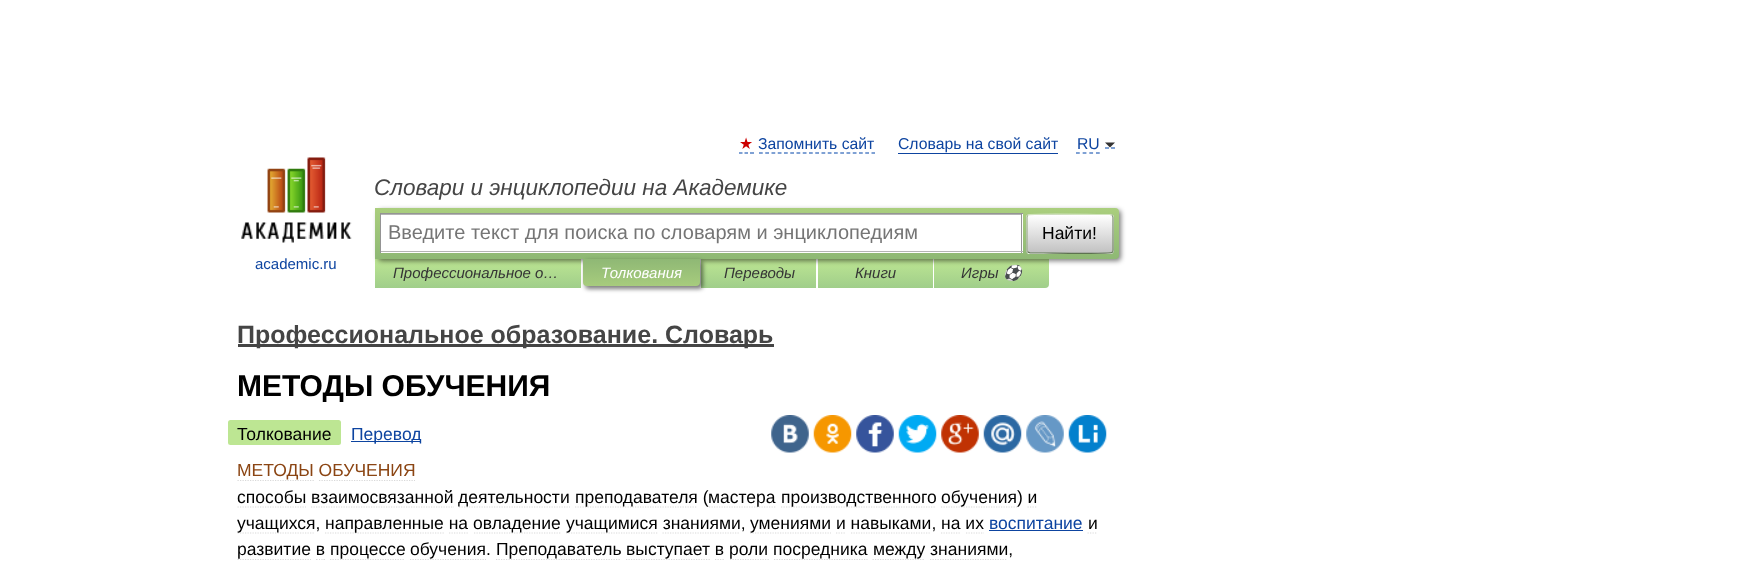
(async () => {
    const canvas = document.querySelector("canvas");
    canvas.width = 1748;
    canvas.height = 576;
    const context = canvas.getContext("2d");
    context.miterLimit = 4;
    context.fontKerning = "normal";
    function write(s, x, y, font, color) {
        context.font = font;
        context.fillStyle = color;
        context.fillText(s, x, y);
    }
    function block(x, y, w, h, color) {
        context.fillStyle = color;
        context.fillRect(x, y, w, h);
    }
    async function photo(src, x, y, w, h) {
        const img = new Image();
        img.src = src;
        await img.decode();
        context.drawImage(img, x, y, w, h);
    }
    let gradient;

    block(0, 0, 1748, 576, "rgb(255, 255, 255)");
    write("★", 739, 149, "15.75px DejaVu Sans", "rgb(204, 0, 0)");
    context.beginPath();
    context.moveTo(739, 153);
    context.lineTo(742.5, 153);
    context.moveTo(744.5, 153);
    context.lineTo(748, 153);
    context.moveTo(750, 153);
    context.lineTo(754, 153);
    context.strokeStyle = "rgb(0, 68, 170)";
    context.lineWidth = 1.2;
    context.stroke();
    write("Запомнить сайт", 758, 149, "15.75px Liberation Sans", "rgb(13, 68, 160)");
    context.beginPath();
    context.moveTo(759, 153);
    context.lineTo(875, 153);
    context.setLineDash([3.75, 2.5]);
    context.stroke();
    write("Словарь на свой сайт", 898, 149, "15.75px Liberation Sans", "rgb(13, 68, 160)");
    block(898, 153, 160, 1, "rgb(13, 68, 160)");
    context.beginPath();
    context.moveTo(1076, 153);
    context.lineTo(1100, 153);
    context.setLineDash([3.75, 2.91]);
    context.stroke();
    context.beginPath();
    context.moveTo(1105, 148);
    context.lineTo(1109, 148);
    context.moveTo(1111, 148);
    context.lineTo(1115, 148);
    context.setLineDash([]);
    context.stroke();
    write("RU", 1077, 149, "15.75px Liberation Sans", "rgb(13, 68, 160)");
    context.fillStyle = "rgb(51, 51, 51)";
    context.beginPath();
    context.moveTo(1105, 142.5);
    context.lineTo(1115, 142.5);
    context.lineTo(1110, 147.5);
    context.closePath();
    context.fill();
    write("Словари и энциклопедии на Академике", 374, 195, "italic 22.5px Liberation Sans", "rgb(69, 69, 69)");
    gradient = context.createLinearGradient(478, 259, 478, 288);
    gradient.addColorStop(0, "rgb(189, 230, 147)");
    gradient.addColorStop(1, "rgb(160, 206, 138)");
    context.fillStyle = gradient;
    context.fillRect(375, 259, 206, 29);
    gradient = context.createLinearGradient(759, 259, 759, 288);
    gradient.addColorStop(0, "rgb(189, 230, 147)");
    gradient.addColorStop(1, "rgb(160, 206, 138)");
    context.fillStyle = gradient;
    context.fillRect(701, 259, 115, 29);
    gradient = context.createLinearGradient(875, 259, 875, 288);
    gradient.addColorStop(0, "rgb(189, 230, 147)");
    gradient.addColorStop(1, "rgb(160, 206, 138)");
    context.fillStyle = gradient;
    context.fillRect(818, 259, 115, 29);
    gradient = context.createLinearGradient(991, 259, 991, 288);
    gradient.addColorStop(0, "rgb(189, 230, 147)");
    gradient.addColorStop(1, "rgb(160, 206, 138)");
    context.fillStyle = gradient;
    context.beginPath();
    context.roundRect(934, 259, 115, 29, [0, 0, 4, 0]);
    context.fill();
    context.fillStyle = "rgba(0, 0, 0, 0.5)";
    context.filter = "blur(2.5px)";
    context.beginPath();
    context.roundRect(378, 210, 743, 51, 4);
    context.fill();
    context.filter = "none";
    gradient = context.createLinearGradient(747, 207, 747, 259);
    gradient.addColorStop(0, "rgb(171, 207, 126)");
    gradient.addColorStop(1, "rgb(142, 184, 116)");
    context.fillStyle = gradient;
    context.beginPath();
    context.roundRect(375, 208, 744, 51, [0, 4, 4, 0]);
    context.fill();
    block(381, 214, 642, 39, "rgb(255, 255, 255)");
    block(381, 214, 640, 1, "rgb(179, 179, 179)");
    block(380, 213, 643, 1, "rgb(148, 148, 148)");
    block(1021, 213, 1, 40, "rgb(148, 148, 148)");
    block(380, 251, 643, 1, "rgb(180, 180, 180)");
    block(380, 213, 1, 40, "rgb(148, 148, 148)");
    write("Введите текст для поиска по словарям и энциклопедиям", 388, 239, "20px Liberation Sans", "rgb(117, 117, 117)");
    context.save();
    context.beginPath();
    context.roundRect(1026, 214, 88, 40, 4);
    context.clip();
    gradient = context.createLinearGradient(1070, 178, 1070, 215);
    gradient.addColorStop(0, "rgb(255, 255, 255)");
    gradient.addColorStop(1, "rgb(193, 193, 193)");
    context.fillStyle = gradient;
    context.fillRect(1026, 214, 88, 1);
    gradient = context.createLinearGradient(1070, 215, 1070, 253);
    gradient.addColorStop(0, "rgb(255, 255, 255)");
    gradient.addColorStop(1, "rgb(193, 193, 193)");
    context.fillStyle = gradient;
    context.fillRect(1026, 215, 88, 38);
    gradient = context.createLinearGradient(1070, 253, 1070, 290);
    gradient.addColorStop(0, "rgb(255, 255, 255)");
    gradient.addColorStop(1, "rgb(193, 193, 193)");
    context.fillStyle = gradient;
    context.fillRect(1026, 253, 88, 1);
    context.restore();
    context.beginPath();
    context.moveTo(1028, 215.5);
    context.lineTo(1028, 215);
    context.bezierCurveTo(1030, 213.5, 1089, 214.5, 1096.5, 214.5);
    context.lineTo(1110, 214.5);
    context.lineTo(1112, 215.5);
    context.strokeStyle = "rgb(209, 228, 188)";
    context.stroke();
    context.beginPath();
    context.moveTo(1112, 215.5);
    context.bezierCurveTo(1113, 216, 1113, 216.5, 1113, 217.5);
    context.lineTo(1113, 250);
    context.bezierCurveTo(1113, 251, 1113, 251.5, 1112, 252);
    context.strokeStyle = "rgb(122, 142, 105)";
    context.stroke();
    context.beginPath();
    context.moveTo(1112, 252);
    context.lineTo(1112, 252.5);
    context.bezierCurveTo(1110, 254, 1051, 253, 1043.5, 253);
    context.lineTo(1030, 253);
    context.lineTo(1028, 252);
    context.strokeStyle = "rgb(93, 114, 80)";
    context.stroke();
    context.beginPath();
    context.moveTo(1028, 252);
    context.bezierCurveTo(1027, 251.5, 1027, 251, 1027, 250);
    context.lineTo(1027, 217.5);
    context.bezierCurveTo(1027, 216.5, 1027, 216, 1028, 215.5);
    context.strokeStyle = "rgb(154, 174, 137)";
    context.stroke();
    write("Найти!", 1042, 239, "17.5px Liberation Sans", "rgb(0, 0, 0)");
    await photo("media/1.png", 241, 157, 111, 86);
    write("academic.ru", 255, 269, "15px Liberation Sans", "rgb(13, 68, 160)");
    write("Профессиональное о…", 393, 278, "italic 15px Liberation Sans", "rgb(53, 53, 53)");
    context.fillStyle = "rgba(0, 0, 0, 0.5)";
    context.filter = "blur(2px)";
    context.beginPath();
    context.roundRect(585, 261, 118, 28, 4);
    context.fill();
    context.filter = "none";
    gradient = context.createLinearGradient(641, 259, 641, 286);
    gradient.addColorStop(0, "rgb(143, 184, 117)");
    gradient.addColorStop(1, "rgb(167, 204, 125)");
    context.fillStyle = gradient;
    context.beginPath();
    context.roundRect(583, 259, 117, 27, [0, 0, 4, 4]);
    context.fill();
    write("Толкования", 601, 278, "italic 15px Liberation Sans", "rgb(255, 255, 255)");
    write("Переводы", 724, 278, "italic 15px Liberation Sans", "rgb(53, 53, 53)");
    write("Книги", 855, 278, "italic 15px Liberation Sans", "rgb(53, 53, 53)");
    write("Игры", 961, 278, "italic 15px Liberation Sans", "rgb(53, 53, 53)");
    write("⚽", 1003, 278, "italic 15px Noto Color Emoji", "rgb(53, 53, 53)");
    block(238, 344, 536, 3, "rgb(69, 69, 69)");
    write("Профессиональное образование. Словарь", 237, 343, "bold 25px Liberation Sans", "rgb(69, 69, 69)");
    write("МЕТОДЫ ОБУЧЕНИЯ", 237, 396, "bold 30px Liberation Sans", "rgb(0, 0, 0)");
    context.fillStyle = "rgb(189, 230, 147)";
    context.beginPath();
    context.roundRect(228, 420, 10, 25, [2.5, 0, 0, 2.5]);
    context.fill();
    context.beginPath();
    context.roundRect(238, 420, 103, 25, [0, 2.5, 2.5, 0]);
    context.fill();
    write("Толкование", 237, 440, "17.5px Liberation Sans", "rgb(0, 0, 0)");
    block(351, 441, 70, 1, "rgb(13, 68, 160)");
    write("Перевод", 351, 440, "17.5px Liberation Sans", "rgb(13, 68, 160)");
    await photo("media/2.png", 771, 415, 38, 38);
    await photo("media/3.png", 813, 415, 39, 38);
    await photo("media/4.png", 856, 415, 38, 38);
    await photo("media/5.png", 898, 415, 39, 38);
    await photo("media/6.png", 941, 415, 38, 38);
    await photo("media/7.png", 983, 415, 39, 38);
    await photo("media/8.png", 1026, 415, 38, 38);
    await photo("media/9.png", 1068, 415, 39, 38);
    context.beginPath();
    context.moveTo(237.5, 480.5);
    context.lineTo(314, 480.5);
    context.strokeStyle = "rgb(217, 217, 217)";
    context.setLineDash([1.25, 1.25]);
    context.stroke();
    write("МЕТОДЫ ОБУЧЕНИЯ", 237, 476, "17.5px Liberation Sans", "rgb(139, 69, 19)");
    context.beginPath();
    context.moveTo(319, 480.5);
    context.lineTo(415, 480.5);
    context.stroke();
    write("способы взаимосвязанной", 237, 503, "17.5px Liberation Sans", "rgb(0, 0, 0)");
    context.beginPath();
    context.moveTo(237.5, 507);
    context.lineTo(306, 507);
    context.stroke();
    context.beginPath();
    context.moveTo(459, 507);
    context.lineTo(570, 507);
    context.stroke();
    write("деятельности", 458, 503, "17.5px Liberation Sans", "rgb(0, 0, 0)");
    context.beginPath();
    context.moveTo(575, 507);
    context.lineTo(697.5, 507);
    context.stroke();
    write("преподавателя (", 575, 503, "17.5px Liberation Sans", "rgb(0, 0, 0)");
    context.beginPath();
    context.moveTo(709, 507);
    context.lineTo(776, 507);
    context.stroke();
    write("мастера", 708, 503, "17.5px Liberation Sans", "rgb(0, 0, 0)");
    context.beginPath();
    context.moveTo(781, 507);
    context.lineTo(936, 507);
    context.stroke();
    write("производственного", 781, 503, "17.5px Liberation Sans", "rgb(0, 0, 0)");
    context.beginPath();
    context.moveTo(941, 507);
    context.lineTo(1017.5, 507);
    context.stroke();
    write("обучения) и", 941, 503, "17.5px Liberation Sans", "rgb(0, 0, 0)");
    context.beginPath();
    context.moveTo(311, 507);
    context.lineTo(454, 507);
    context.stroke();
    context.beginPath();
    context.moveTo(1027.5, 507);
    context.lineTo(1037.5, 507);
    context.stroke();
    context.beginPath();
    context.moveTo(237.5, 533);
    context.lineTo(315, 533);
    context.stroke();
    write("учащихся,", 237, 529, "17.5px Liberation Sans", "rgb(0, 0, 0)");
    context.beginPath();
    context.moveTo(325, 533);
    context.lineTo(444, 533);
    context.stroke();
    write("направленные на", 325, 529, "17.5px Liberation Sans", "rgb(0, 0, 0)");
    context.beginPath();
    context.moveTo(474, 533);
    context.lineTo(561, 533);
    context.stroke();
    write("овладение", 473, 529, "17.5px Liberation Sans", "rgb(0, 0, 0)");
    context.beginPath();
    context.moveTo(566, 533);
    context.lineTo(657.5, 533);
    context.stroke();
    write("учащимися знаниями,", 566, 529, "17.5px Liberation Sans", "rgb(0, 0, 0)");
    context.beginPath();
    context.moveTo(750, 533);
    context.lineTo(831, 533);
    context.stroke();
    write("умениями и навыками, на их", 750, 529, "17.5px Liberation Sans", "rgb(0, 0, 0)");
    write("воспитание", 989, 529, "17.5px Liberation Sans", "rgb(13, 68, 160)");
    block(989, 530, 94, 1, "rgb(13, 68, 160)");
    write("и", 1088, 529, "17.5px Liberation Sans", "rgb(0, 0, 0)");
    context.beginPath();
    context.moveTo(1087.5, 533);
    context.lineTo(1097.5, 533);
    context.stroke();
    context.beginPath();
    context.moveTo(449, 533);
    context.lineTo(469, 533);
    context.stroke();
    context.beginPath();
    context.moveTo(662.5, 533);
    context.lineTo(740, 533);
    context.stroke();
    context.beginPath();
    context.moveTo(836, 533);
    context.lineTo(846, 533);
    context.stroke();
    context.beginPath();
    context.moveTo(851, 533);
    context.lineTo(931, 533);
    context.stroke();
    context.beginPath();
    context.moveTo(941, 533);
    context.lineTo(961, 533);
    context.moveTo(966, 533);
    context.lineTo(984, 533);
    context.stroke();
    context.beginPath();
    context.moveTo(237.5, 559.5);
    context.lineTo(311, 559.5);
    context.stroke();
    write("развитие в", 237, 555, "17.5px Liberation Sans", "rgb(0, 0, 0)");
    context.beginPath();
    context.moveTo(330, 559.5);
    context.lineTo(405, 559.5);
    context.stroke();
    write("процессе", 330, 555, "17.5px Liberation Sans", "rgb(0, 0, 0)");
    context.beginPath();
    context.moveTo(410, 559.5);
    context.lineTo(486, 559.5);
    context.stroke();
    write("обучения.", 410, 555, "17.5px Liberation Sans", "rgb(0, 0, 0)");
    context.beginPath();
    context.moveTo(496, 559.5);
    context.lineTo(621, 559.5);
    context.stroke();
    write("Преподаватель", 496, 555, "17.5px Liberation Sans", "rgb(0, 0, 0)");
    context.beginPath();
    context.moveTo(626, 559.5);
    context.lineTo(710, 559.5);
    context.stroke();
    write("выступает в", 626, 555, "17.5px Liberation Sans", "rgb(0, 0, 0)");
    context.beginPath();
    context.moveTo(715, 559.5);
    context.lineTo(725, 559.5);
    context.moveTo(730, 559.5);
    context.lineTo(769, 559.5);
    context.stroke();
    write("роли", 729, 555, "17.5px Liberation Sans", "rgb(0, 0, 0)");
    context.beginPath();
    context.moveTo(774, 559.5);
    context.lineTo(867.5, 559.5);
    context.stroke();
    write("посредника", 773, 555, "17.5px Liberation Sans", "rgb(0, 0, 0)");
    context.beginPath();
    context.moveTo(872.5, 559.5);
    context.lineTo(925, 559.5);
    context.stroke();
    write("между знаниями,", 873, 555, "17.5px Liberation Sans", "rgb(0, 0, 0)");
    context.beginPath();
    context.moveTo(316, 559.5);
    context.lineTo(317.5, 559.5);
    context.moveTo(319, 559.5);
    context.lineTo(320, 559.5);
    context.moveTo(321.5, 559.5);
    context.lineTo(322.5, 559.5);
    context.moveTo(323.5, 559.5);
    context.lineTo(325, 559.5);
    context.setLineDash([]);
    context.stroke();
    context.beginPath();
    context.moveTo(930, 559.5);
    context.lineTo(1007.5, 559.5);
    context.setLineDash([1.25, 1.25]);
    context.stroke();
})();
